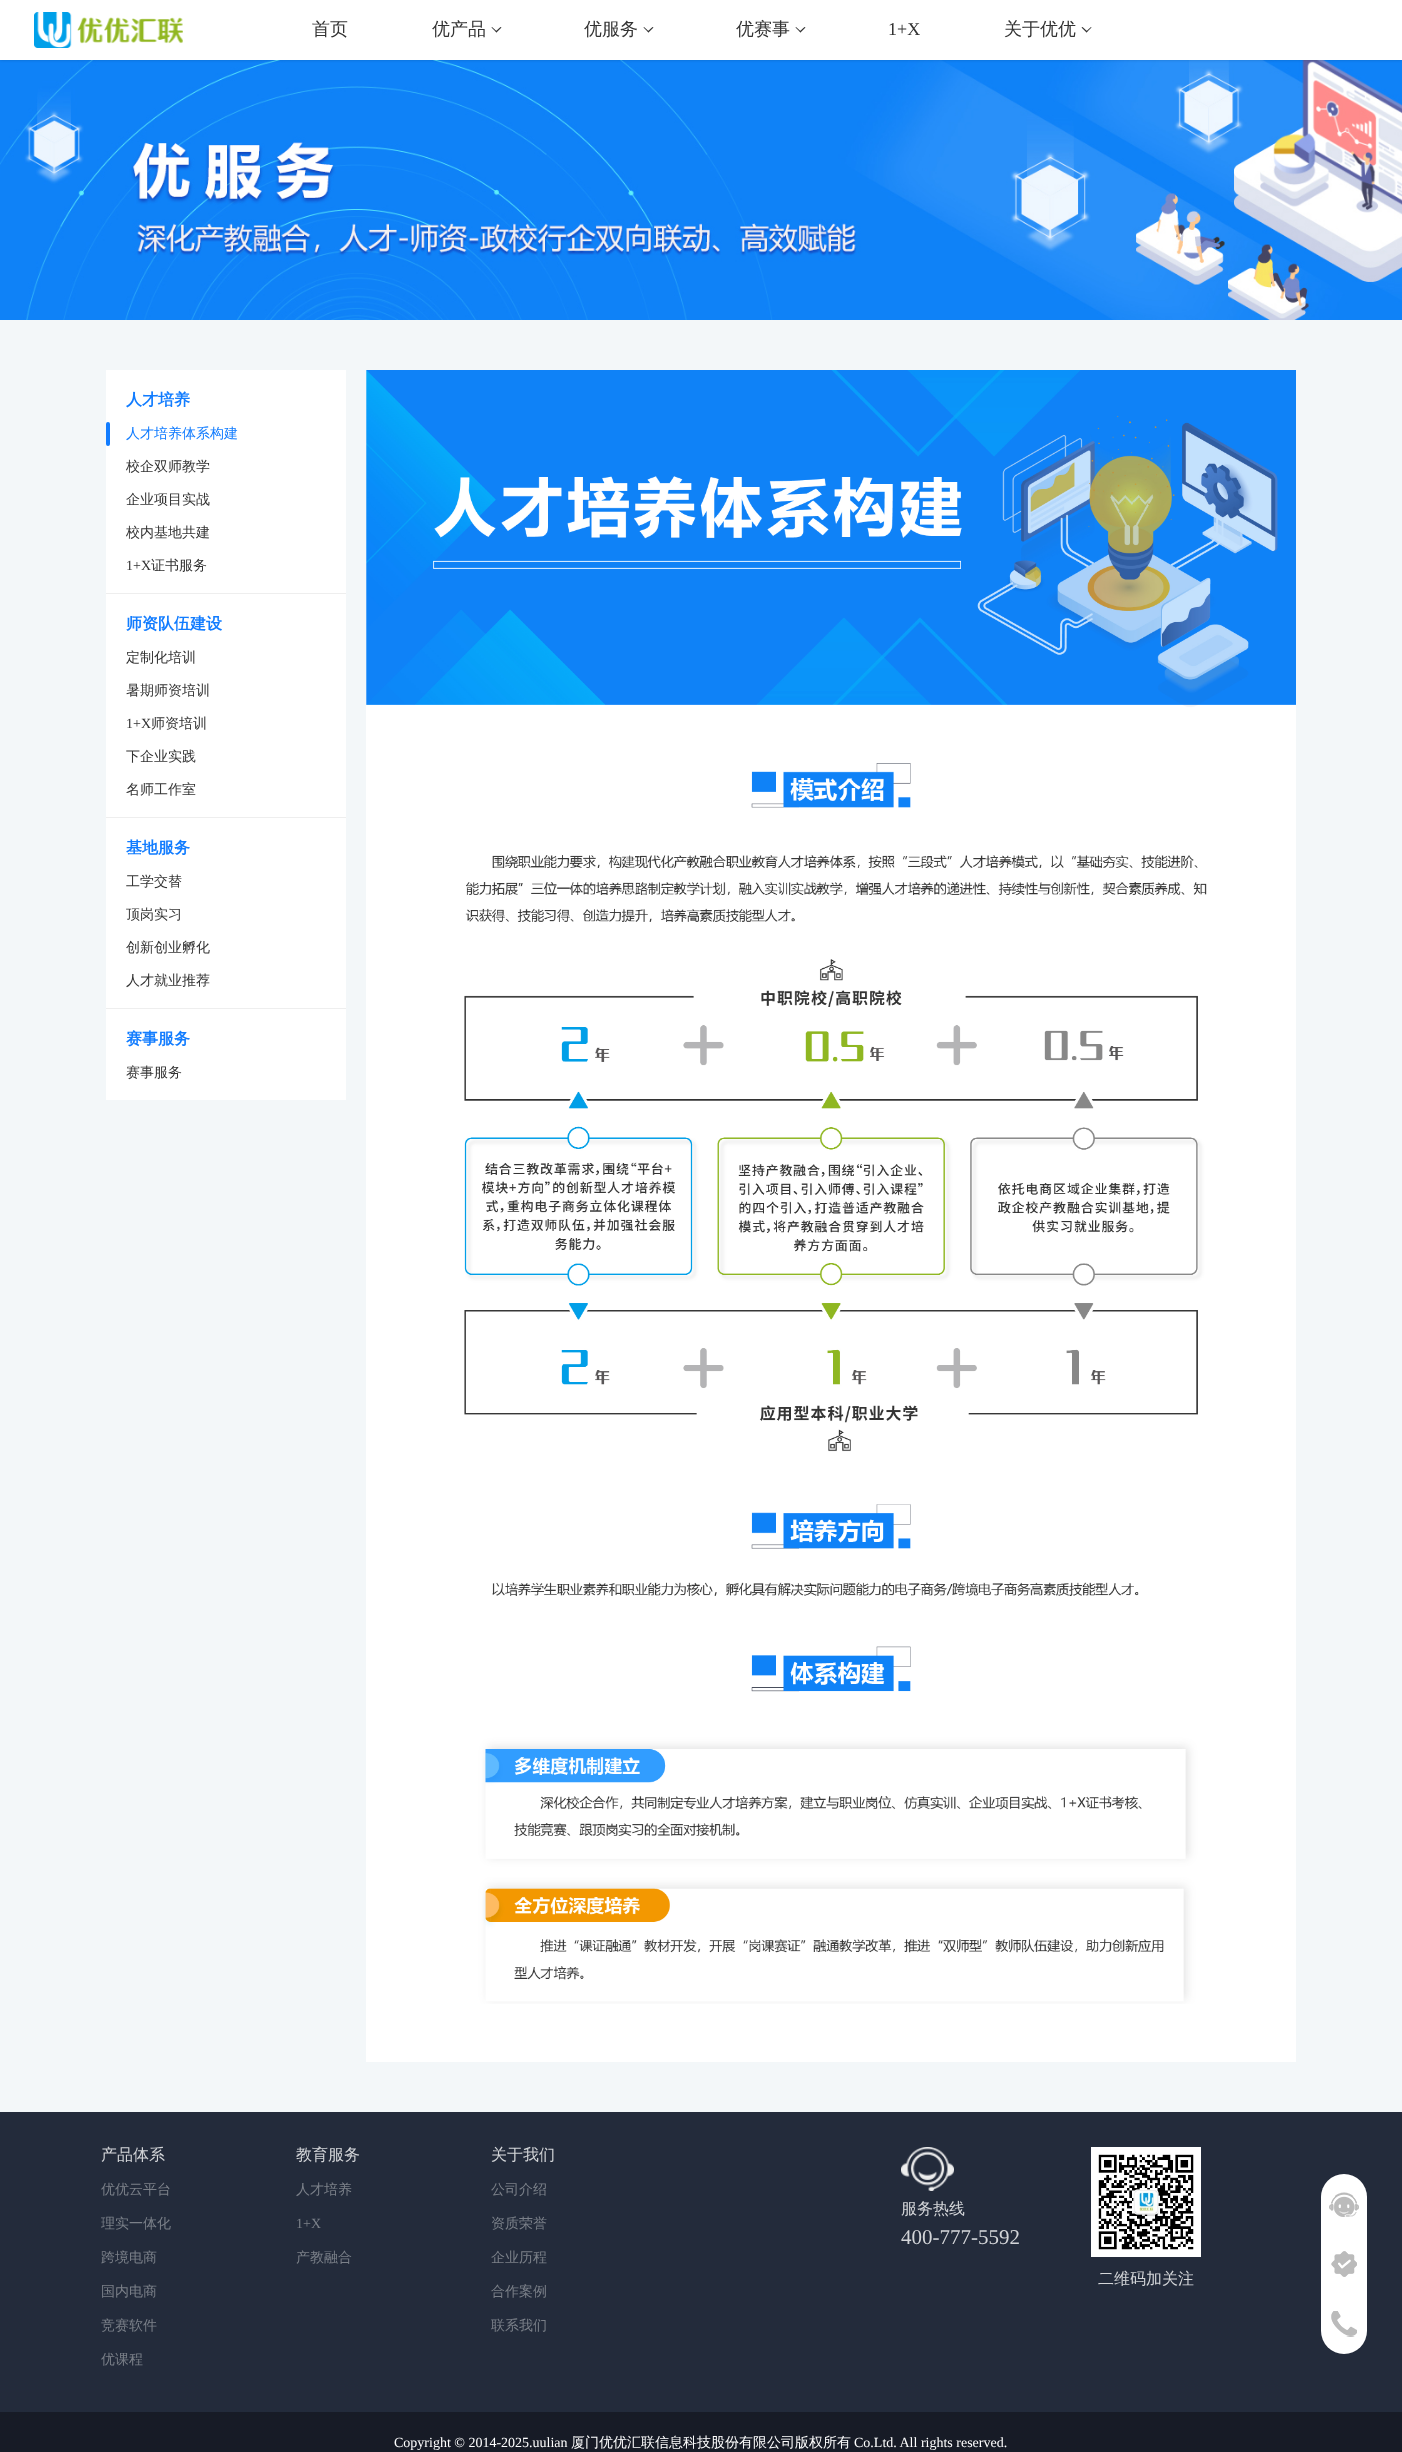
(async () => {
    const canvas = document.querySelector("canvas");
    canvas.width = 1402;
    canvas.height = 2452;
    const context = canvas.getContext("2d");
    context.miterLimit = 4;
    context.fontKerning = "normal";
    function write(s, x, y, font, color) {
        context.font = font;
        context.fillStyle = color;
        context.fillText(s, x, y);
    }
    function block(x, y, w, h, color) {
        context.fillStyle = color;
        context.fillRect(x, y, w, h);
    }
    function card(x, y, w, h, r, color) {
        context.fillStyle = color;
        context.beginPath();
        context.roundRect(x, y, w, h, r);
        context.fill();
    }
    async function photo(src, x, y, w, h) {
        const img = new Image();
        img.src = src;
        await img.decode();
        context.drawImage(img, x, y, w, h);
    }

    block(0, 0, 1402, 2452, "rgb(243, 247, 249)");
    await photo("media/2.png", 0, 60, 1402, 260);
    context.fillStyle = "rgba(0, 0, 0, 0.2)";
    context.filter = "blur(1.5px)";
    context.beginPath();
    context.rect(0, 0, 1402, 60);
    context.fill();
    context.filter = "none";
    block(0, 0, 1402, 60, "rgb(255, 255, 255)");
    await photo("media/1.png", 34, 12, 149, 36);
    write("首页", 312, 35, "500 18px WenQuanYi Zen Hei", "rgb(51, 51, 51)");
    write("优产品", 432, 35, "500 18px WenQuanYi Zen Hei", "rgb(51, 51, 51)");
    context.beginPath();
    context.moveTo(500.5, 27);
    context.lineTo(501.5, 27.5);
    context.lineTo(496.5, 32.5);
    context.lineTo(495.5, 31.5);
    context.closePath();
    context.fill();
    context.beginPath();
    context.moveTo(492, 27);
    context.lineTo(497, 31.5);
    context.lineTo(496.5, 32.5);
    context.lineTo(491.5, 27.5);
    context.closePath();
    context.fill();
    write("优服务", 584, 35, "500 18px WenQuanYi Zen Hei", "rgb(51, 51, 51)");
    context.beginPath();
    context.moveTo(652.5, 27);
    context.lineTo(653.5, 27.5);
    context.lineTo(648.5, 32.5);
    context.lineTo(647.5, 31.5);
    context.closePath();
    context.fill();
    context.beginPath();
    context.moveTo(644, 27);
    context.lineTo(649, 31.5);
    context.lineTo(648.5, 32.5);
    context.lineTo(643.5, 27.5);
    context.closePath();
    context.fill();
    write("优赛事", 736, 35, "500 18px WenQuanYi Zen Hei", "rgb(51, 51, 51)");
    context.beginPath();
    context.moveTo(804.5, 27);
    context.lineTo(805.5, 27.5);
    context.lineTo(800.5, 32.5);
    context.lineTo(799.5, 31.5);
    context.closePath();
    context.fill();
    context.beginPath();
    context.moveTo(796, 27);
    context.lineTo(801, 31.5);
    context.lineTo(800.5, 32.5);
    context.lineTo(795.5, 27.5);
    context.closePath();
    context.fill();
    write("1+X", 888, 35, "18px Liberation Serif", "rgb(51, 51, 51)");
    write("关于优优", 1004, 35, "500 18px WenQuanYi Zen Hei", "rgb(51, 51, 51)");
    context.beginPath();
    context.moveTo(1091, 27);
    context.lineTo(1091.5, 27.5);
    context.lineTo(1086.5, 32.5);
    context.lineTo(1086, 31.5);
    context.closePath();
    context.fill();
    context.beginPath();
    context.moveTo(1082.5, 27);
    context.lineTo(1087.5, 31.5);
    context.lineTo(1086.5, 32.5);
    context.lineTo(1081.5, 27.5);
    context.closePath();
    context.fill();
    block(106, 370, 240, 730, "rgb(255, 255, 255)");
    block(106, 593, 240, 1, "rgb(238, 238, 238)");
    write("人才培养", 126, 405, "bold 16px WenQuanYi Zen Hei", "rgb(17, 124, 255)");
    card(106, 422, 4, 24, 2, "rgb(17, 124, 255)");
    write("人才培养体系构建", 126, 438, "500 14px WenQuanYi Zen Hei", "rgb(17, 124, 255)");
    write("校企双师教学", 126, 471, "500 14px WenQuanYi Zen Hei", "rgb(51, 51, 51)");
    write("企业项目实战", 126, 504, "500 14px WenQuanYi Zen Hei", "rgb(51, 51, 51)");
    write("校内基地共建", 126, 537, "500 14px WenQuanYi Zen Hei", "rgb(51, 51, 51)");
    write("1+X", 126, 570, "14px Liberation Serif", "rgb(51, 51, 51)");
    write("证书服务", 151, 570, "500 14px WenQuanYi Zen Hei", "rgb(51, 51, 51)");
    block(106, 817, 240, 1, "rgb(238, 238, 238)");
    write("师资队伍建设", 126, 629, "bold 16px WenQuanYi Zen Hei", "rgb(17, 124, 255)");
    write("定制化培训", 126, 662, "500 14px WenQuanYi Zen Hei", "rgb(51, 51, 51)");
    write("暑期师资培训", 126, 695, "500 14px WenQuanYi Zen Hei", "rgb(51, 51, 51)");
    write("1+X", 126, 728, "14px Liberation Serif", "rgb(51, 51, 51)");
    write("师资培训", 151, 728, "500 14px WenQuanYi Zen Hei", "rgb(51, 51, 51)");
    write("下企业实践", 126, 761, "500 14px WenQuanYi Zen Hei", "rgb(51, 51, 51)");
    write("名师工作室", 126, 794, "500 14px WenQuanYi Zen Hei", "rgb(51, 51, 51)");
    block(106, 1008, 240, 1, "rgb(238, 238, 238)");
    write("基地服务", 126, 853, "bold 16px WenQuanYi Zen Hei", "rgb(17, 124, 255)");
    write("工学交替", 126, 886, "500 14px WenQuanYi Zen Hei", "rgb(51, 51, 51)");
    write("顶岗实习", 126, 919, "500 14px WenQuanYi Zen Hei", "rgb(51, 51, 51)");
    write("创新创业孵化", 126, 952, "500 14px WenQuanYi Zen Hei", "rgb(51, 51, 51)");
    write("人才就业推荐", 126, 985, "500 14px WenQuanYi Zen Hei", "rgb(51, 51, 51)");
    write("赛事服务", 126, 1044, "bold 16px WenQuanYi Zen Hei", "rgb(17, 124, 255)");
    write("赛事服务", 126, 1077, "500 14px WenQuanYi Zen Hei", "rgb(51, 51, 51)");
    block(366, 2004, 930, 58, "rgb(255, 255, 255)");
    await photo("media/3.png", 366, 370, 930, 1634);
    block(0, 2112, 1402, 300, "rgb(35, 43, 59)");
    write("产品体系", 101, 2160, "500 16px WenQuanYi Zen Hei", "rgb(211, 213, 216)");
    write("优优云平台", 101, 2194, "500 14px WenQuanYi Zen Hei", "rgb(123, 128, 137)");
    write("理实一体化", 101, 2228, "500 14px WenQuanYi Zen Hei", "rgb(123, 128, 137)");
    write("跨境电商", 101, 2262, "500 14px WenQuanYi Zen Hei", "rgb(123, 128, 137)");
    write("国内电商", 101, 2296, "500 14px WenQuanYi Zen Hei", "rgb(123, 128, 137)");
    write("竞赛软件", 101, 2330, "500 14px WenQuanYi Zen Hei", "rgb(123, 128, 137)");
    write("优课程", 101, 2364, "500 14px WenQuanYi Zen Hei", "rgb(123, 128, 137)");
    write("教育服务", 296, 2160, "500 16px WenQuanYi Zen Hei", "rgb(211, 213, 216)");
    write("人才培养", 296, 2194, "500 14px WenQuanYi Zen Hei", "rgb(123, 128, 137)");
    write("1+X", 296, 2228, "14px Liberation Serif", "rgb(123, 128, 137)");
    write("产教融合", 296, 2262, "500 14px WenQuanYi Zen Hei", "rgb(123, 128, 137)");
    write("关于我们", 491, 2160, "500 16px WenQuanYi Zen Hei", "rgb(211, 213, 216)");
    write("公司介绍", 491, 2194, "500 14px WenQuanYi Zen Hei", "rgb(123, 128, 137)");
    write("资质荣誉", 491, 2228, "500 14px WenQuanYi Zen Hei", "rgb(123, 128, 137)");
    write("企业历程", 491, 2262, "500 14px WenQuanYi Zen Hei", "rgb(123, 128, 137)");
    write("合作案例", 491, 2296, "500 14px WenQuanYi Zen Hei", "rgb(123, 128, 137)");
    write("联系我们", 491, 2330, "500 14px WenQuanYi Zen Hei", "rgb(123, 128, 137)");
    await photo("media/4.png", 901, 2147, 53, 44);
    write("服务热线", 901, 2214, "500 16px WenQuanYi Zen Hei", "rgb(211, 213, 216)");
    write("400-777-5592", 901, 2244, "21px Liberation Serif", "rgb(211, 213, 216)");
    await photo("media/5.png", 1091, 2147, 110, 110);
    write("二维码加关注", 1098, 2284, "500 16px WenQuanYi Zen Hei", "rgb(211, 213, 216)");
    block(0, 2412, 1402, 40, "rgb(23, 27, 38)");
    write("Copyright © 2014-2025.uulian", 394, 2447, "14px Liberation Serif", "rgb(255, 255, 255)");
    write("厦门优优汇联信息科技股份有限公司版权所有", 571, 2447, "500 14px WenQuanYi Zen Hei", "rgb(255, 255, 255)");
    write("Co.Ltd. All rights reserved.", 854, 2447, "14px Liberation Serif", "rgb(255, 255, 255)");
    card(1321, 2174, 46, 180, 23, "rgb(255, 255, 255)");
    await photo("media/6.png", 1329, 2192, 30, 25);
    await photo("media/7.png", 1331, 2251, 26, 26);
    await photo("media/8.png", 1331, 2311, 26, 26);
})();
